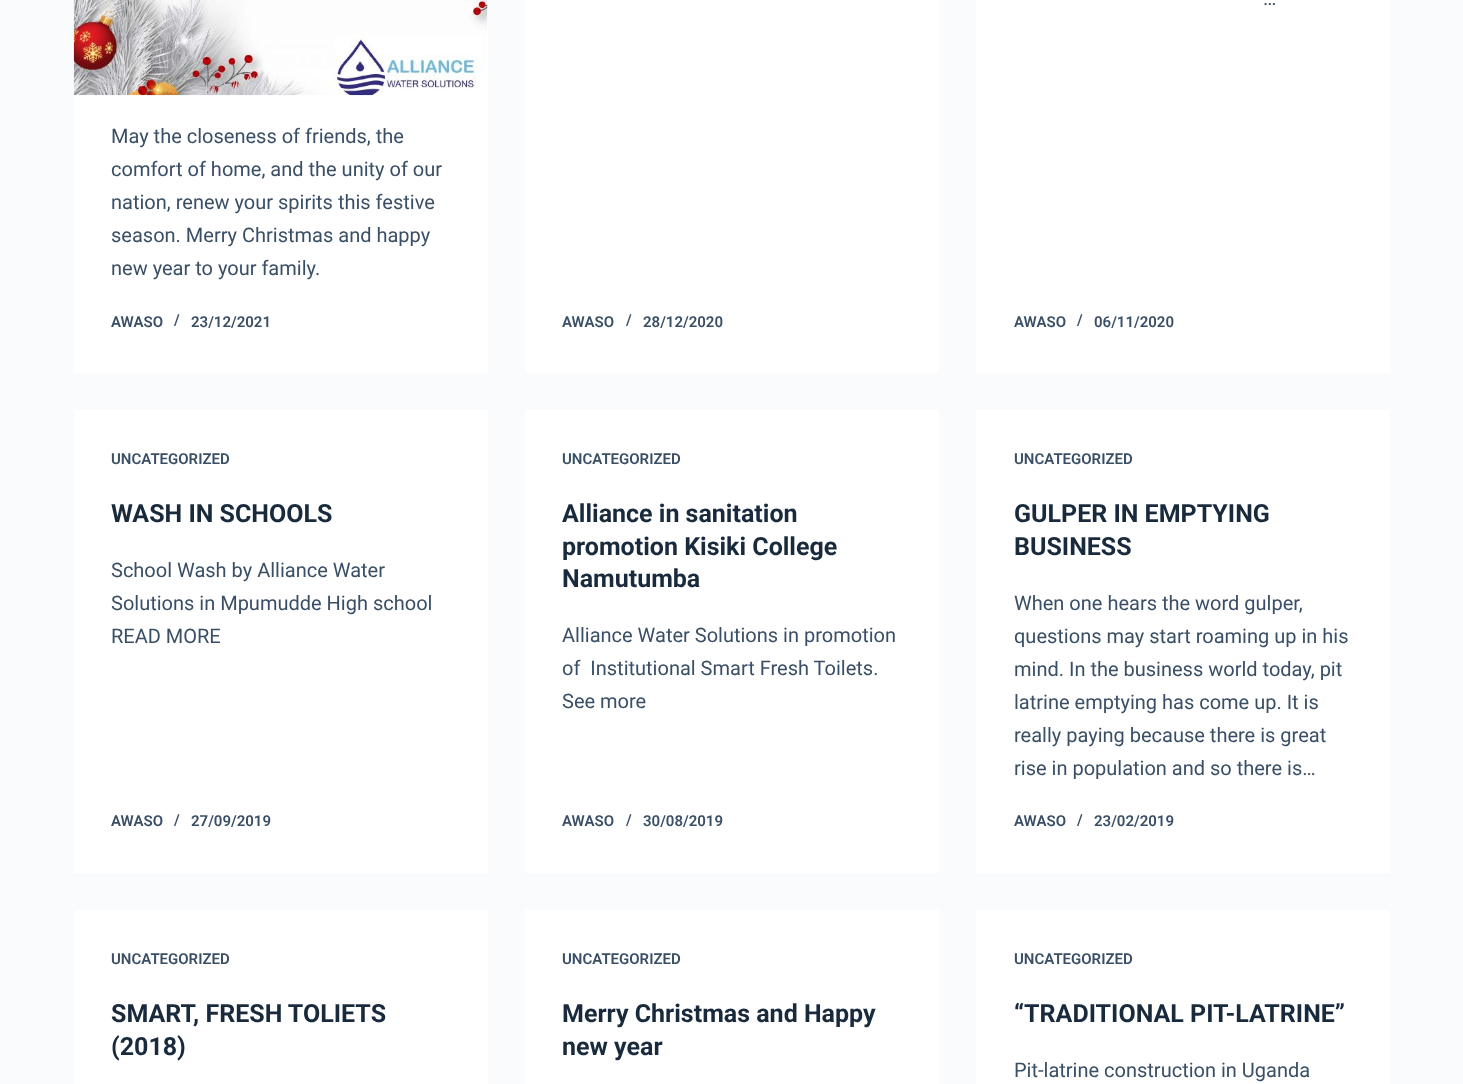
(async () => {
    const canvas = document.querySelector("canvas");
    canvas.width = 1463;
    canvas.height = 1084;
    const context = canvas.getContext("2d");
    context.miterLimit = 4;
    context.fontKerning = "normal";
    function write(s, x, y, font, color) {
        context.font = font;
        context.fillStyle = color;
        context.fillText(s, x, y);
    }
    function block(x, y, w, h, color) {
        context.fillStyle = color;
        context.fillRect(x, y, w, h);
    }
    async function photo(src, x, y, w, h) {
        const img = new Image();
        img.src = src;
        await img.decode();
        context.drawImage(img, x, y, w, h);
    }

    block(0, 0, 1463, 1084, "rgb(250, 251, 252)");
    block(74, 0, 414, 373, "rgb(255, 255, 255)");
    await photo("media/1.png", 73, 0, 415, 96);
    write("May the closeness of friends, the", 111, 143, "20px Roboto", "rgb(58, 79, 102)");
    write("comfort of home, and the unity of our", 111, 176, "20px Roboto", "rgb(58, 79, 102)");
    write("nation, renew your spirits this festive", 111, 209, "20px Roboto", "rgb(58, 79, 102)");
    write("season. Merry Christmas and happy", 111, 242, "20px Roboto", "rgb(58, 79, 102)");
    write("new year to your family.", 111, 275, "20px Roboto", "rgb(58, 79, 102)");
    write("AWASO", 111, 327, "600 15px Roboto", "rgb(58, 79, 102)");
    write("/", 174, 325, "600 15px Roboto", "rgb(58, 79, 102)");
    write("23/12/2021", 191, 327, "600 15px Roboto", "rgb(58, 79, 102)");
    block(525, 0, 414, 373, "rgb(255, 255, 255)");
    write("AWASO", 562, 327, "600 15px Roboto", "rgb(58, 79, 102)");
    write("/", 626, 325, "600 15px Roboto", "rgb(58, 79, 102)");
    write("28/12/2020", 643, 327, "600 15px Roboto", "rgb(58, 79, 102)");
    block(976, 0, 414, 373, "rgb(255, 255, 255)");
    write("…", 1263, 5, "20px Roboto", "rgb(58, 79, 102)");
    write("AWASO", 1014, 327, "600 15px Roboto", "rgb(58, 79, 102)");
    write("/", 1077, 325, "600 15px Roboto", "rgb(58, 79, 102)");
    write("06/11/2020", 1094, 327, "600 15px Roboto", "rgb(58, 79, 102)");
    block(74, 410, 414, 463, "rgb(255, 255, 255)");
    write("UNCATEGORIZED", 111, 464, "600 15px Roboto", "rgb(58, 79, 102)");
    write("WASH IN SCHOOLS", 111, 522, "bold 25px Roboto", "rgb(25, 42, 61)");
    write("School Wash by Alliance Water", 111, 577, "20px Roboto", "rgb(58, 79, 102)");
    write("Solutions in Mpumudde High school", 111, 610, "20px Roboto", "rgb(58, 79, 102)");
    write("READ MORE", 111, 643, "20px Roboto", "rgb(58, 79, 102)");
    write("AWASO", 111, 826, "600 15px Roboto", "rgb(58, 79, 102)");
    write("/", 174, 825, "600 15px Roboto", "rgb(58, 79, 102)");
    write("27/09/2019", 191, 826, "600 15px Roboto", "rgb(58, 79, 102)");
    block(525, 410, 414, 463, "rgb(255, 255, 255)");
    write("UNCATEGORIZED", 562, 464, "600 15px Roboto", "rgb(58, 79, 102)");
    write("Alliance in sanitation", 562, 522, "bold 25px Roboto", "rgb(25, 42, 61)");
    write("promotion Kisiki College", 562, 555, "bold 25px Roboto", "rgb(25, 42, 61)");
    write("Namutumba", 562, 587, "bold 25px Roboto", "rgb(25, 42, 61)");
    write("Alliance Water Solutions in promotion", 562, 642, "20px Roboto", "rgb(58, 79, 102)");
    write("of  Institutional Smart Fresh Toilets.", 562, 675, "20px Roboto", "rgb(58, 79, 102)");
    write("See more", 562, 708, "20px Roboto", "rgb(58, 79, 102)");
    write("AWASO", 562, 826, "600 15px Roboto", "rgb(58, 79, 102)");
    write("/", 626, 825, "600 15px Roboto", "rgb(58, 79, 102)");
    write("30/08/2019", 643, 826, "600 15px Roboto", "rgb(58, 79, 102)");
    block(976, 410, 414, 463, "rgb(255, 255, 255)");
    write("UNCATEGORIZED", 1014, 464, "600 15px Roboto", "rgb(58, 79, 102)");
    write("GULPER IN EMPTYING", 1014, 522, "bold 25px Roboto", "rgb(25, 42, 61)");
    write("BUSINESS", 1014, 555, "bold 25px Roboto", "rgb(25, 42, 61)");
    write("When one hears the word gulper,", 1014, 610, "20px Roboto", "rgb(58, 79, 102)");
    write("questions may start roaming up in his", 1014, 643, "20px Roboto", "rgb(58, 79, 102)");
    write("mind. In the business world today, pit", 1014, 676, "20px Roboto", "rgb(58, 79, 102)");
    write("latrine emptying has come up. It is", 1014, 709, "20px Roboto", "rgb(58, 79, 102)");
    write("really paying because there is great", 1014, 742, "20px Roboto", "rgb(58, 79, 102)");
    write("rise in population and so there is…", 1014, 775, "20px Roboto", "rgb(58, 79, 102)");
    write("AWASO", 1014, 826, "600 15px Roboto", "rgb(58, 79, 102)");
    write("/", 1077, 825, "600 15px Roboto", "rgb(58, 79, 102)");
    write("23/02/2019", 1094, 826, "600 15px Roboto", "rgb(58, 79, 102)");
    block(74, 910, 414, 174, "rgb(255, 255, 255)");
    write("UNCATEGORIZED", 111, 964, "600 15px Roboto", "rgb(58, 79, 102)");
    write("SMART, FRESH TOLIETS", 111, 1022, "bold 25px Roboto", "rgb(25, 42, 61)");
    write("(2018)", 111, 1055, "bold 25px Roboto", "rgb(25, 42, 61)");
    block(525, 910, 414, 174, "rgb(255, 255, 255)");
    write("UNCATEGORIZED", 562, 964, "600 15px Roboto", "rgb(58, 79, 102)");
    write("Merry Christmas and Happy", 562, 1022, "bold 25px Roboto", "rgb(25, 42, 61)");
    write("new year", 562, 1055, "bold 25px Roboto", "rgb(25, 42, 61)");
    block(976, 910, 414, 174, "rgb(255, 255, 255)");
    write("UNCATEGORIZED", 1014, 964, "600 15px Roboto", "rgb(58, 79, 102)");
    write("“TRADITIONAL PIT-LATRINE”", 1014, 1022, "bold 25px Roboto", "rgb(25, 42, 61)");
    write("Pit-latrine construction in Uganda", 1014, 1077, "20px Roboto", "rgb(58, 79, 102)");
})();
